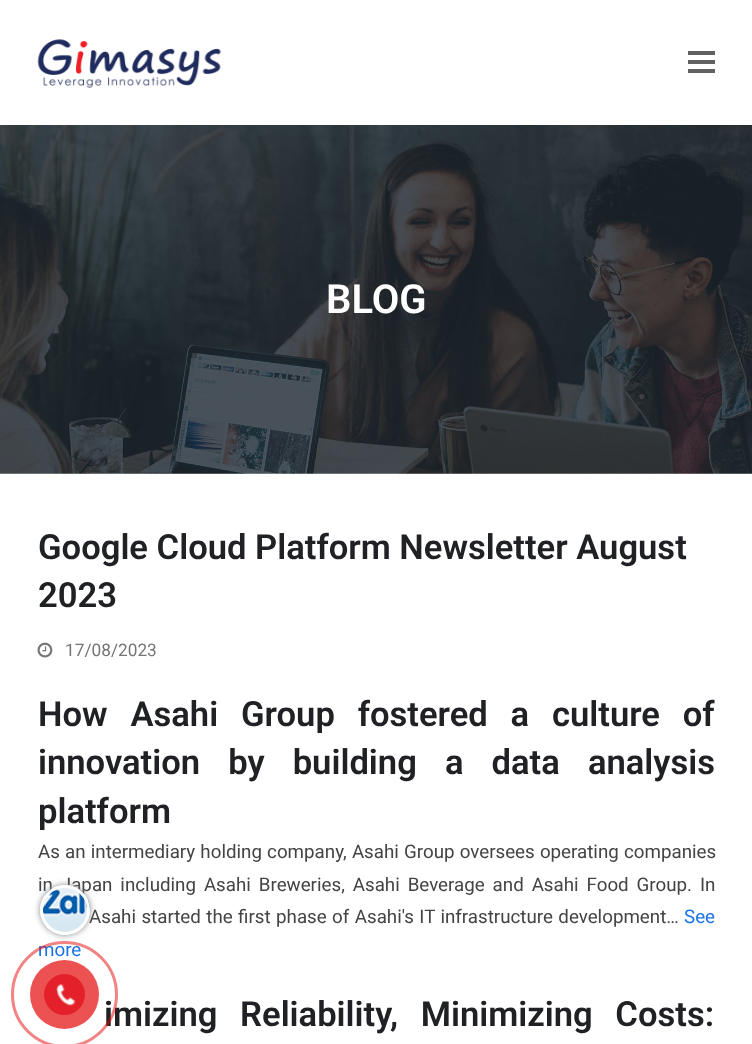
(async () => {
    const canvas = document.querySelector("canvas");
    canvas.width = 752;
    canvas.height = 1044;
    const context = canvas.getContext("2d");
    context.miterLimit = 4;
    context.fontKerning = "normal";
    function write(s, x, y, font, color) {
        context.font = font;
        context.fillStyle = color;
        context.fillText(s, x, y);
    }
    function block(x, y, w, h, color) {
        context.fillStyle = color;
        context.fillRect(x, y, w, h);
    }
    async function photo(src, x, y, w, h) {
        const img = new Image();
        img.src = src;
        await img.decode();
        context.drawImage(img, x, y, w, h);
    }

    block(0, 0, 752, 1044, "rgb(255, 255, 255)");
    await photo("media/1.png", 37, 39, 185, 49);
    block(688, 60, 27, 4, "rgb(97, 97, 97)");
    block(688, 51, 27, 4, "rgb(97, 97, 97)");
    block(688, 69, 27, 4, "rgb(97, 97, 97)");
    await photo("media/2.png", 0, 125, 752, 349);
    write("BLOG", 326, 313, "600 40px Roboto", "rgb(255, 255, 255)");
    write("Google Cloud Platform Newsletter August", 38, 559, "600 34.6px Roboto", "rgb(32, 33, 36)");
    write("2023", 38, 607, "600 34.6px Roboto", "rgb(32, 33, 36)");
    await photo("media/3.png", 37, 642, 16, 16);
    write("17/08/2023", 65, 656, "17.25px Roboto", "rgb(117, 117, 117)");
    context.wordSpacing = "14.25px";
    write("How Asahi Group fostered a culture of", 38, 726, "600 34.6px Roboto", "rgb(32, 33, 36)");
    context.wordSpacing = "19.5px";
    write("innovation by building a data analysis", 38, 774, "600 34.6px Roboto", "rgb(32, 33, 36)");
    context.wordSpacing = "0px";
    write("platform", 38, 823, "600 34.6px Roboto", "rgb(32, 33, 36)");
    context.wordSpacing = "0.5px";
    write("As an intermediary holding company, Asahi Group oversees operating companies", 38, 858, "18.75px Roboto", "rgb(68, 68, 68)");
    context.wordSpacing = "3.25px";
    write("in Japan including Asahi Breweries, Asahi Beverage and Asahi Food Group. In", 38, 891, "18.75px Roboto", "rgb(68, 68, 68)");
    context.wordSpacing = "0.75px";
    write("Asahi started the first phase of Asahi's IT infrastructure development…", 89, 923, "18.75px Roboto", "rgb(68, 68, 68)");
    context.wordSpacing = "0px";
    write("See", 684, 923, "18.75px Roboto", "rgb(26, 115, 232)");
    write("more", 38, 956, "18.75px Roboto", "rgb(26, 115, 232)");
    context.wordSpacing = "14px";
    write("imizing Reliability, Minimizing Costs:", 104, 1026, "600 34.6px Roboto", "rgb(32, 33, 36)");
    context.fillStyle = "rgb(136, 136, 136)";
    context.filter = "blur(3px)";
    context.beginPath();
    context.roundRect(40, 885, 50, 50, 25);
    context.fill();
    context.filter = "none";
    await photo("media/4.png", 40, 885, 50, 50);
    context.beginPath();
    context.arc(65, 910, 23.5, 0, Math.PI * 2);
    context.strokeStyle = "rgb(255, 255, 255)";
    context.lineWidth = 3;
    context.stroke();
    context.beginPath();
    context.arc(64.5, 994.5, 52, 0, Math.PI * 2);
    context.strokeStyle = "rgba(230, 8, 8, 0.5)";
    context.stroke();
    context.fillStyle = "rgba(230, 8, 8, 0.7)";
    context.beginPath();
    context.arc(64.5, 994.5, 34.5, 0, Math.PI * 2);
    context.fill();
    context.fillStyle = "rgb(228, 33, 42)";
    context.beginPath();
    context.arc(64.5, 994.5, 20.5, 0, Math.PI * 2);
    context.fill();
    await photo("media/5.png", 56, 984, 20, 22);
})();
